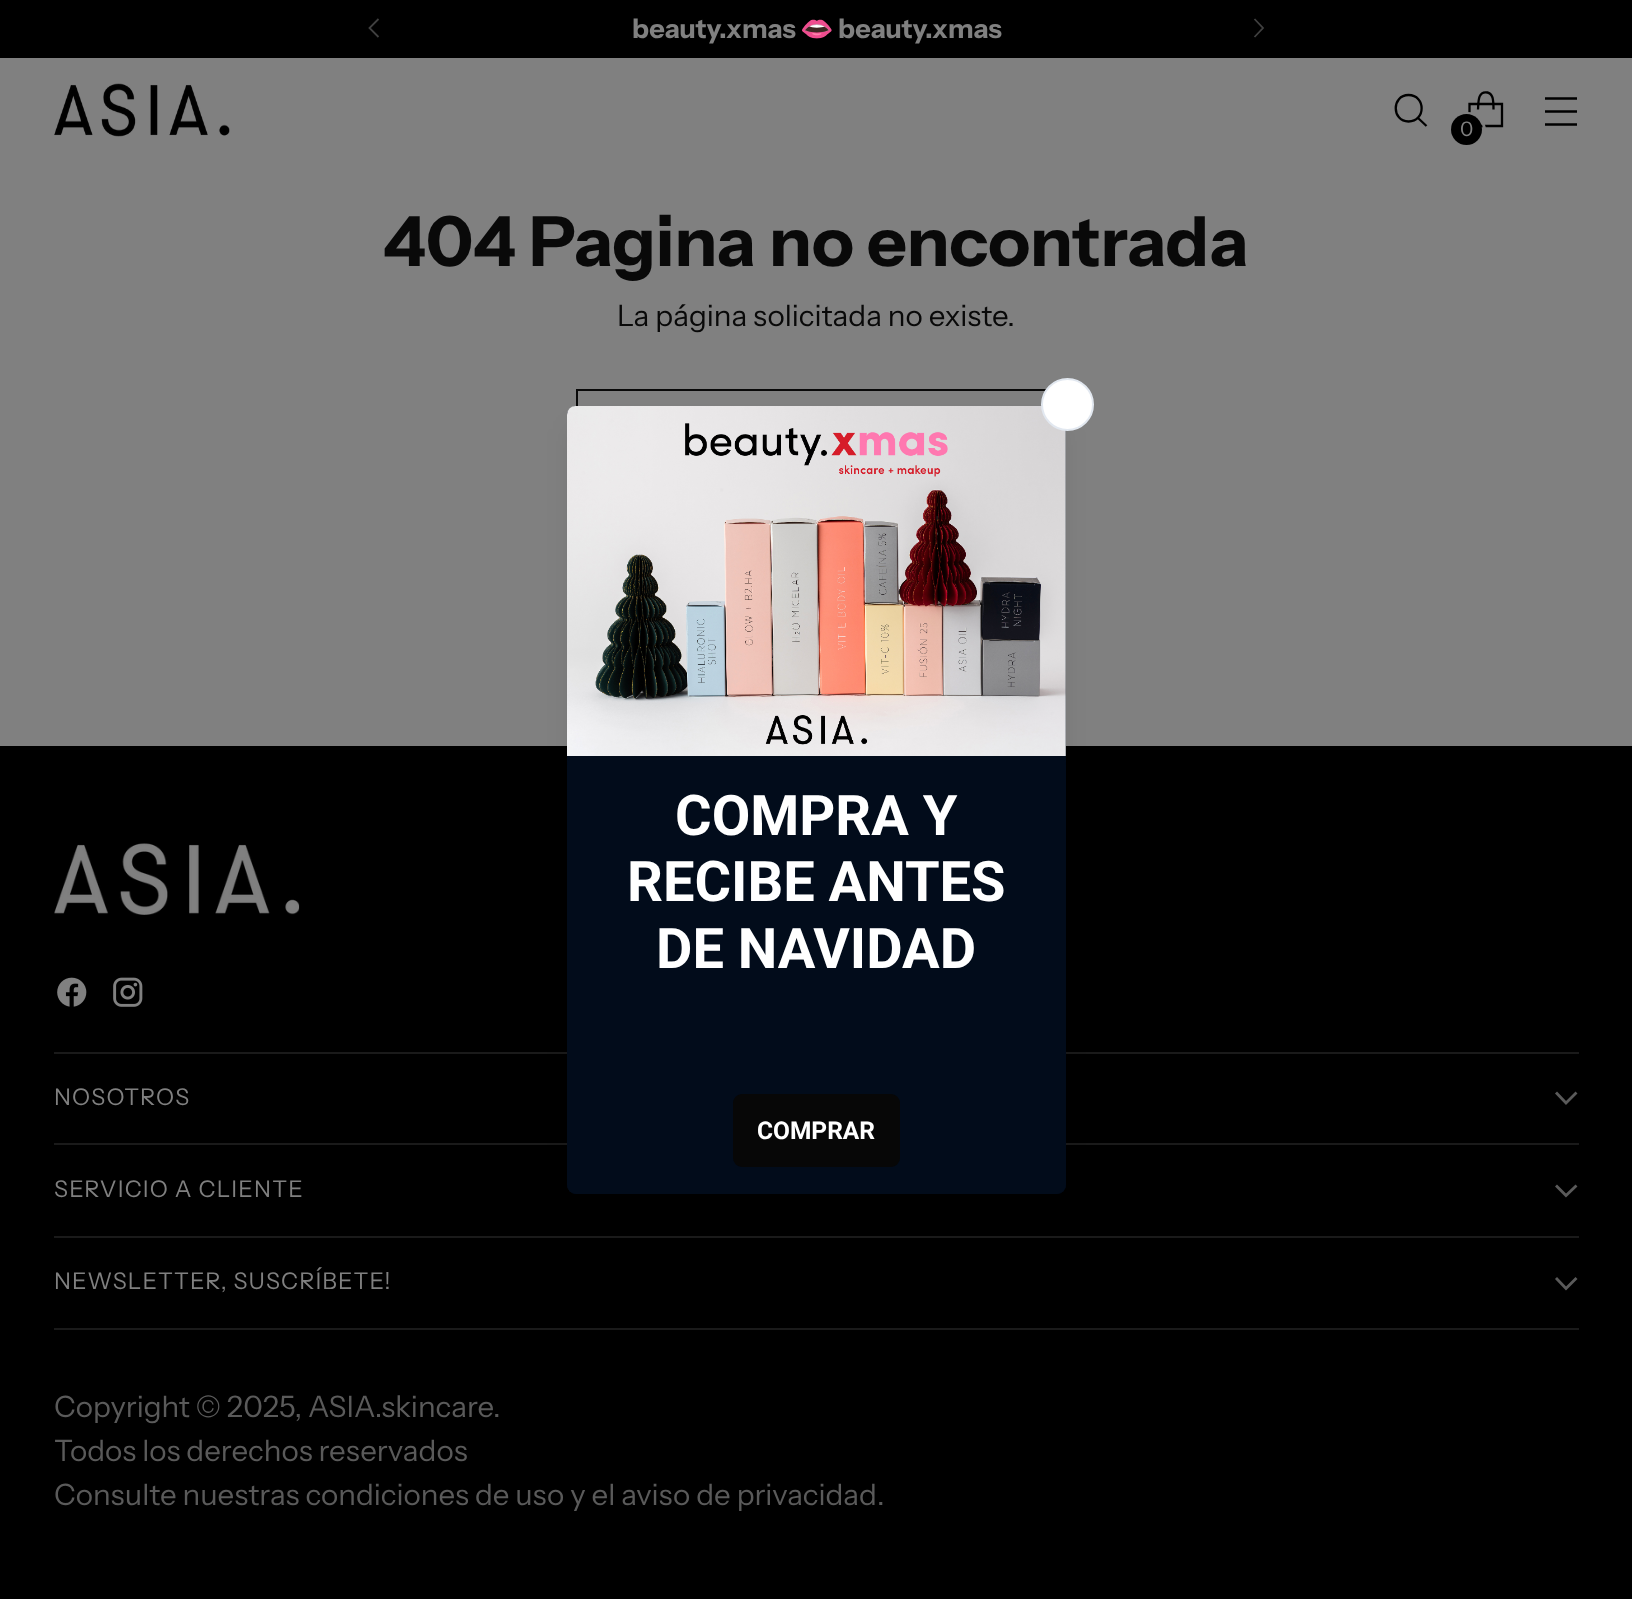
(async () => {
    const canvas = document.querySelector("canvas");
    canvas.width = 1632;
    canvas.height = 1599;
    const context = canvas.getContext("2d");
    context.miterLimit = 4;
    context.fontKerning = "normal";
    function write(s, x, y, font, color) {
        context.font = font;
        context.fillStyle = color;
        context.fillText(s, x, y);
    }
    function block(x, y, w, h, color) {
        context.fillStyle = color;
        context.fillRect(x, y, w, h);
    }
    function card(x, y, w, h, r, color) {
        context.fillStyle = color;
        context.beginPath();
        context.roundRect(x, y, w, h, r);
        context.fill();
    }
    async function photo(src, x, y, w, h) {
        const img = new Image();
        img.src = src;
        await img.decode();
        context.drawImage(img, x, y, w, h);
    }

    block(0, 0, 1632, 1599, "rgb(128, 128, 128)");
    block(0, 0, 1632, 58, "rgb(0, 0, 0)");
    write("beauty.xmas", 632, 38, "bold 27px Instrument Sans", "rgb(128, 128, 128)");
    write("👄", 800, 38, "bold 27px Noto Color Emoji", "rgb(128, 128, 128)");
    write("beauty.xmas", 838, 38, "bold 27px Instrument Sans", "rgb(128, 128, 128)");
    context.beginPath();
    context.moveTo(378.5, 19);
    context.lineTo(369.5, 28);
    context.lineTo(378.5, 37);
    context.strokeStyle = "rgb(64, 64, 64)";
    context.lineWidth = 1.8;
    context.stroke();
    context.beginPath();
    context.moveTo(1254.5, 37);
    context.lineTo(1263, 28);
    context.lineTo(1254.5, 19);
    context.stroke();
    await photo("media/1.png", 54, 83, 176, 54);
    context.beginPath();
    context.moveTo(1408.5, 121.5);
    context.bezierCurveTo(1426, 121.5, 1426, 95, 1408.5, 95);
    context.bezierCurveTo(1391.5, 95, 1391.5, 121.5, 1408.5, 121.5);
    context.closePath();
    context.strokeStyle = "rgb(0, 0, 0)";
    context.lineWidth = 2.3;
    context.lineCap = "round";
    context.stroke();
    context.beginPath();
    context.moveTo(1418, 118);
    context.lineTo(1426.5, 126);
    context.lineCap = "butt";
    context.stroke();
    context.beginPath();
    context.moveTo(1545, 111.5);
    context.lineTo(1577, 111.5);
    context.moveTo(1545, 98.5);
    context.lineTo(1577, 98.5);
    context.moveTo(1545, 124.5);
    context.lineTo(1577, 124.5);
    context.stroke();
    context.beginPath();
    context.moveTo(1493.5, 109.5);
    context.bezierCurveTo(1493.5, 105.5, 1493.5, 101, 1492.5, 97.5);
    context.bezierCurveTo(1491.5, 95, 1490, 93, 1487.5, 92.5);
    context.bezierCurveTo(1477.5, 90.5, 1478.5, 103, 1478, 109.5);
    context.lineJoin = "bevel";
    context.stroke();
    context.beginPath();
    context.moveTo(1502, 126);
    context.lineTo(1502, 104);
    context.lineTo(1469.5, 104);
    context.lineTo(1469.5, 126);
    context.closePath();
    context.lineJoin = "miter";
    context.stroke();
    context.beginPath();
    context.arc(1467.5, 130.5, 17, 0, Math.PI * 2);
    context.strokeStyle = "rgb(128, 128, 128)";
    context.lineWidth = 3;
    context.stroke();
    context.fillStyle = "rgb(0, 0, 0)";
    context.beginPath();
    context.arc(1466.5, 129.5, 15.5, 0, Math.PI * 2);
    context.fill();
    write("0", 1460, 136, "20px Instrument Sans", "rgb(128, 128, 128)");
    write("404 Pagina no encontrada", 383, 266, "bold 69.25px Instrument Sans", "rgb(9, 9, 9)");
    write("La página solicitada no existe.", 617, 326, "29.5px Instrument Sans", "rgb(9, 9, 9)");
    context.strokeStyle = "rgb(9, 9, 9)";
    context.lineWidth = 2;
    context.strokeRect(577, 390, 479, 82);
    block(0, 746, 1632, 853, "rgb(0, 0, 0)");
    block(54, 1052, 1525, 2, "rgb(26, 26, 26)");
    await photo("media/2.png", 54, 843, 246, 72);
    await photo("media/3.png", 57, 977, 30, 30);
    await photo("media/4.png", 113, 977, 30, 30);
    block(54, 1143, 1525, 2, "rgb(26, 26, 26)");
    context.letterSpacing = "1.15px";
    write("NOSOTROS", 54, 1105, "23px Instrument Sans", "rgb(128, 128, 128)");
    context.beginPath();
    context.moveTo(1556, 1092.5);
    context.lineTo(1566, 1103);
    context.lineTo(1576.5, 1092.5);
    context.strokeStyle = "rgb(90, 90, 90)";
    context.lineWidth = 2.8;
    context.stroke();
    block(54, 1236, 1525, 2, "rgb(26, 26, 26)");
    write("SERVICIO A CLIENTE", 54, 1197, "23px Instrument Sans", "rgb(128, 128, 128)");
    context.beginPath();
    context.moveTo(1556, 1185.5);
    context.lineTo(1566, 1195.5);
    context.lineTo(1576.5, 1185.5);
    context.stroke();
    block(54, 1328, 1525, 2, "rgb(26, 26, 26)");
    write("NEWSLETTER, SUSCRÍBETE!", 54, 1289, "23px Instrument Sans", "rgb(128, 128, 128)");
    context.beginPath();
    context.moveTo(1556, 1278);
    context.lineTo(1566, 1288.5);
    context.lineTo(1576.5, 1278);
    context.stroke();
    context.letterSpacing = "0px";
    write("Copyright © 2025, ASIA.skincare", 54, 1417, "29.5px Instrument Sans", "rgb(90, 90, 90)");
    write(".", 493, 1417, "29.5px Instrument Sans", "rgb(90, 90, 90)");
    write("Todos los derechos reservados", 54, 1461, "29.5px Instrument Sans", "rgb(90, 90, 90)");
    write("Consulte nuestras condiciones de uso y el aviso de privacidad.", 54, 1505, "29.5px Instrument Sans", "rgb(90, 90, 90)");
    context.fillStyle = "rgba(0, 0, 0, 0.1)";
    context.filter = "blur(13px)";
    context.beginPath();
    context.roundRect(572, 429, 489, 777, 4);
    context.fill();
    context.filter = "none";
    card(567, 406, 499, 788, 9, "rgb(2, 12, 27)");
    await photo("media/5.png", 567, 406, 499, 350);
    context.fillStyle = "rgb(255, 255, 255)";
    context.beginPath();
    context.arc(1067.5, 404.5, 25.5, 0, Math.PI * 2);
    context.fill();
    context.strokeStyle = "rgb(226, 232, 240)";
    context.lineWidth = 2;
    context.stroke();
    card(567, 756, 499, 438, 9, "rgb(2, 12, 27)");
    write("COMPRA Y", 675, 835, "bold 56px Roboto", "rgb(255, 255, 255)");
    write("RECIBE ANTES", 627, 901, "bold 56px Roboto", "rgb(255, 255, 255)");
    write("DE NAVIDAD", 656, 968, "bold 56px Roboto", "rgb(255, 255, 255)");
    card(733, 1094, 167, 73, 9, "rgb(7, 7, 7)");
    write("COMPRAR", 757, 1139, "bold 24.5px Roboto", "rgb(255, 255, 255)");
})();
